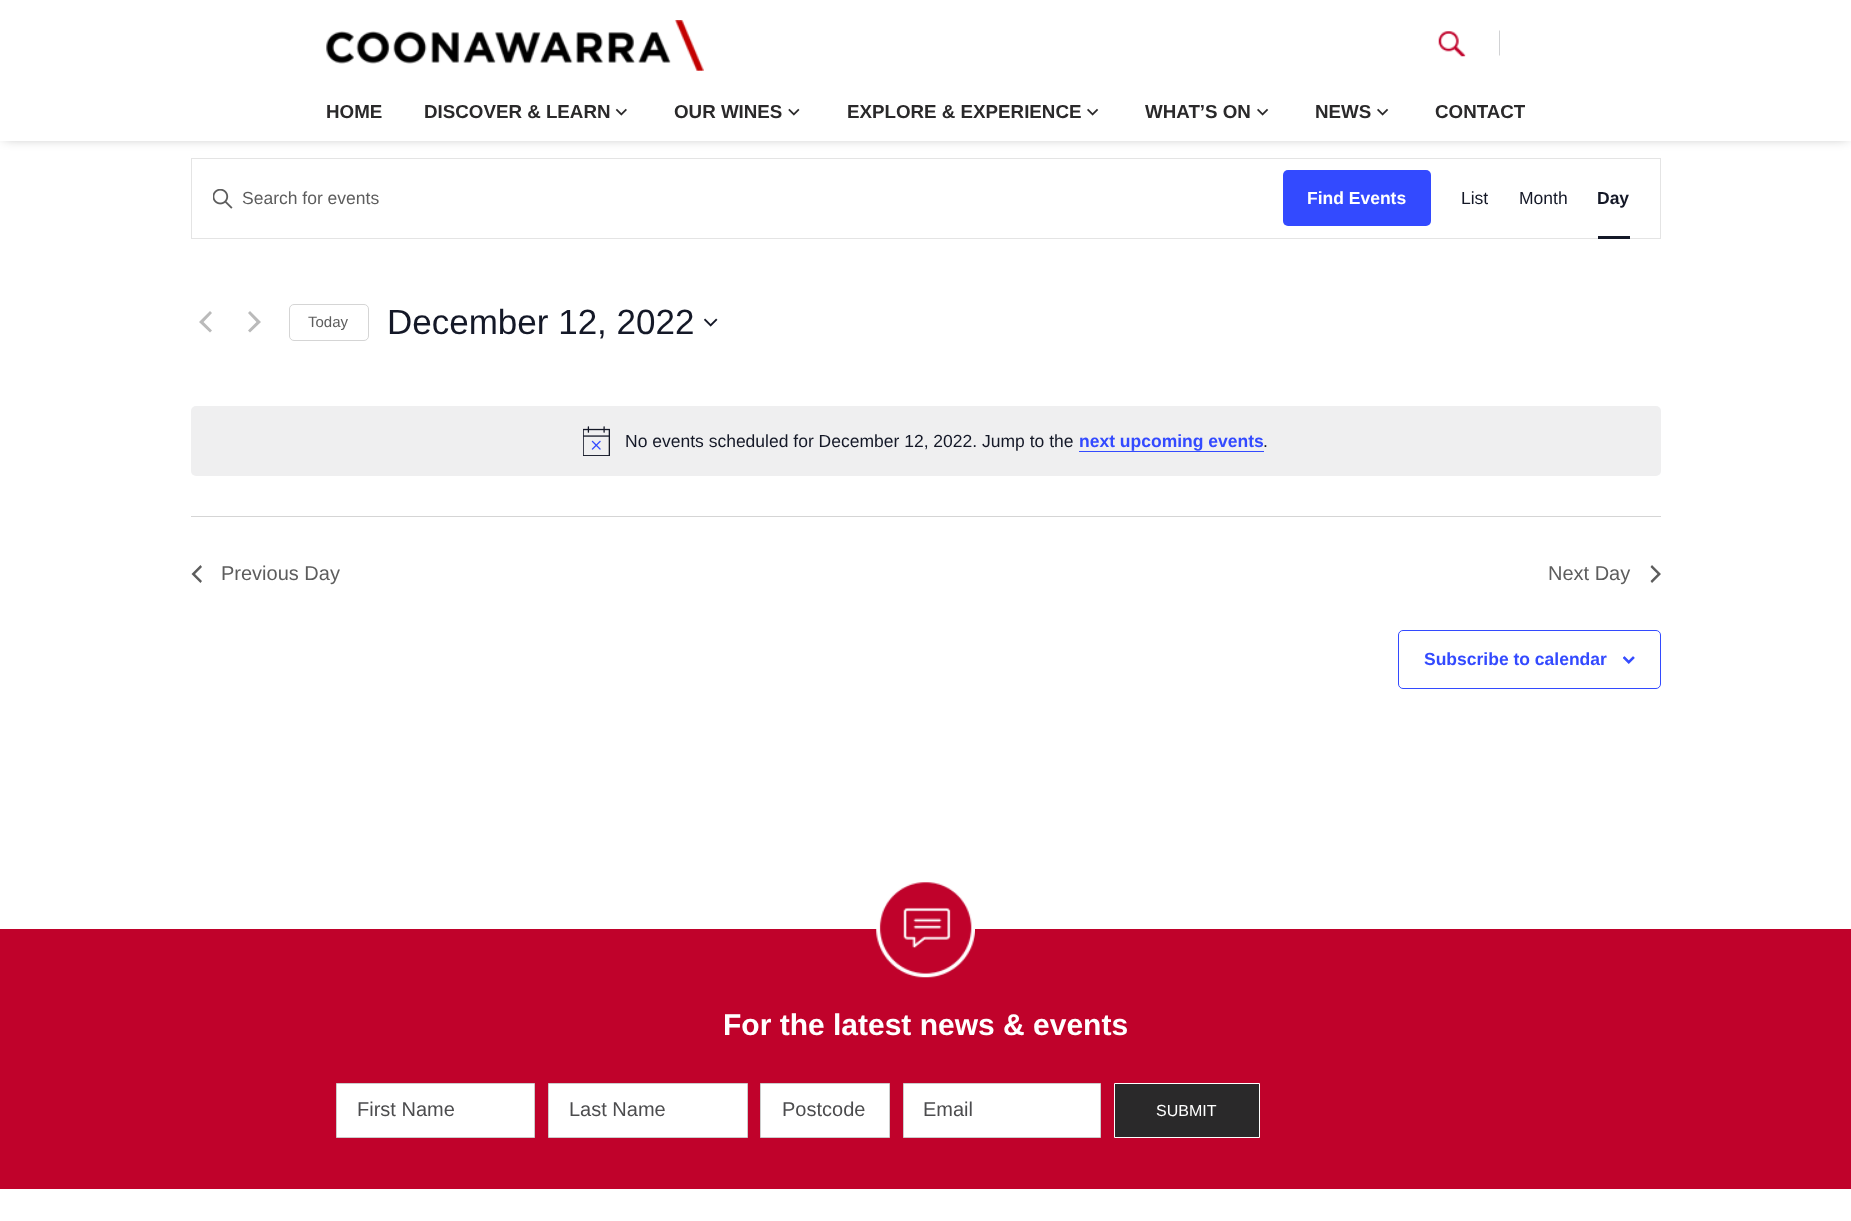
(async () => {
    const canvas = document.querySelector("canvas");
    canvas.width = 1851;
    canvas.height = 1221;
    const context = canvas.getContext("2d");
    context.miterLimit = 4;
    context.fontKerning = "normal";
    function write(s, x, y, font, color) {
        context.font = font;
        context.fillStyle = color;
        context.fillText(s, x, y);
    }
    function block(x, y, w, h, color) {
        context.fillStyle = color;
        context.fillRect(x, y, w, h);
    }
    function card(x, y, w, h, r, color) {
        context.fillStyle = color;
        context.beginPath();
        context.roundRect(x, y, w, h, r);
        context.fill();
    }
    async function photo(src, x, y, w, h) {
        const img = new Image();
        img.src = src;
        await img.decode();
        context.drawImage(img, x, y, w, h);
    }

    block(0, 0, 1851, 1221, "rgb(255, 255, 255)");
    context.fillStyle = "rgba(0, 0, 0, 0.3)";
    context.filter = "blur(6px)";
    context.beginPath();
    context.rect(4, 4, 1844, 134);
    context.fill();
    context.filter = "none";
    block(0, 0, 1851, 141, "rgb(255, 255, 255)");
    await photo("media/1.png", 326, 20, 378, 51);
    await photo("media/2.png", 1438, 31, 28, 26);
    context.fillStyle = "rgb(209, 210, 212)";
    context.beginPath();
    context.moveTo(1500, 30);
    context.lineTo(1500, 56);
    context.lineTo(1499, 55);
    context.lineTo(1499, 31);
    context.closePath();
    context.fill();
    write("HOME", 326, 118, "bold 18.75px Liberation Sans", "rgb(42, 41, 42)");
    write("DISCOVER & LEARN", 424, 118, "bold 18.75px Liberation Sans", "rgb(42, 41, 42)");
    await photo("media/3.png", 615, 108, 12, 8);
    write("OUR WINES", 674, 118, "bold 18.75px Liberation Sans", "rgb(42, 41, 42)");
    await photo("media/4.png", 788, 108, 12, 8);
    write("EXPLORE & EXPERIENCE", 847, 118, "bold 18.75px Liberation Sans", "rgb(42, 41, 42)");
    await photo("media/5.png", 1087, 108, 12, 8);
    write("WHAT’S ON", 1145, 118, "bold 18.75px Liberation Sans", "rgb(42, 41, 42)");
    await photo("media/5.png", 1257, 108, 12, 8);
    write("NEWS", 1315, 118, "bold 18.75px Liberation Sans", "rgb(42, 41, 42)");
    await photo("media/5.png", 1377, 108, 12, 8);
    write("CONTACT", 1435, 118, "bold 18.75px Liberation Sans", "rgb(42, 41, 42)");
    context.strokeStyle = "rgb(228, 228, 228)";
    context.strokeRect(191.5, 158.5, 1469, 80);
    await photo("media/6.png", 213, 189, 20, 20);
    write("Search for events", 242, 204, "17.5px Liberation Sans", "rgb(93, 93, 93)");
    card(1283, 170, 148, 56, 5, "rgb(51, 74, 255)");
    write("Find Events", 1307, 204, "bold 17.5px Liberation Sans", "rgb(255, 255, 255)");
    write("List", 1461, 204, "17.5px Liberation Sans", "rgb(20, 24, 39)");
    write("Month", 1519, 204, "17.5px Liberation Sans", "rgb(20, 24, 39)");
    write("Day", 1597, 204, "bold 17.5px Liberation Sans", "rgb(20, 24, 39)");
    block(1598, 236, 32, 3, "rgb(20, 24, 39)");
    context.fillStyle = "rgb(186, 186, 186)";
    context.beginPath();
    context.moveTo(212, 330.5);
    context.lineTo(210, 332.5);
    context.lineTo(199, 322);
    context.lineTo(210, 311);
    context.lineTo(212, 313);
    context.lineTo(203.5, 322);
    context.closePath();
    context.moveTo(248, 313);
    context.lineTo(250, 311);
    context.lineTo(261, 322);
    context.lineTo(250, 332.5);
    context.lineTo(248, 330.5);
    context.lineTo(256.5, 322);
    context.closePath();
    context.fill();
    context.beginPath();
    context.roundRect(289.5, 304.5, 79, 36, 4.5);
    context.strokeStyle = "rgb(213, 213, 213)";
    context.stroke();
    write("Today", 308, 327, "15px Liberation Sans", "rgb(93, 93, 93)");
    write("December 12, 2022", 387, 334, "35px Liberation Sans", "rgb(20, 24, 39)");
    await photo("media/7.png", 704, 318, 14, 9);
    card(191, 406, 1470, 70, 5, "rgb(239, 239, 240)");
    await photo("media/8.png", 583, 426, 27, 30);
    write("No events scheduled for December 12, 2022. Jump to the", 625, 447, "17.5px Liberation Sans", "rgb(20, 24, 39)");
    write("next upcoming events", 1079, 447, "bold 17.5px Liberation Sans", "rgb(51, 74, 255)");
    block(1079, 451, 185, 1, "rgb(51, 74, 255)");
    write(".", 1263, 447, "17.5px Liberation Sans", "rgb(20, 24, 39)");
    block(191, 516, 1470, 1, "rgb(213, 213, 213)");
    context.fillStyle = "rgb(93, 93, 93)";
    context.beginPath();
    context.moveTo(202, 581);
    context.lineTo(200.5, 583);
    context.lineTo(191.5, 574);
    context.lineTo(200.5, 565);
    context.lineTo(202, 567);
    context.lineTo(195, 574);
    context.closePath();
    context.fill();
    write("Previous Day", 221, 580, "20px Liberation Sans", "rgb(93, 93, 93)");
    write("Next Day", 1548, 580, "20px Liberation Sans", "rgb(93, 93, 93)");
    context.beginPath();
    context.moveTo(1650.5, 567);
    context.lineTo(1652, 565);
    context.lineTo(1661, 574);
    context.lineTo(1652, 583);
    context.lineTo(1650.5, 581);
    context.lineTo(1657.5, 574);
    context.closePath();
    context.fill();
    context.beginPath();
    context.roundRect(1398.5, 630.5, 262, 58, 4.5);
    context.strokeStyle = "rgb(51, 74, 255)";
    context.stroke();
    write("Subscribe to calendar", 1424, 665, "bold 17.5px Liberation Sans", "rgb(51, 74, 255)");
    await photo("media/9.png", 1623, 656, 12, 8);
    block(0, 929, 1851, 260, "rgb(192, 2, 43)");
    await photo("media/10.png", 876, 882, 99, 96);
    write("For the latest news & events", 723, 1035, "bold 30px Liberation Sans", "rgb(255, 255, 255)");
    context.beginPath();
    context.rect(336.5, 1083.5, 198, 54);
    context.fill();
    context.strokeStyle = "rgb(204, 204, 204)";
    context.stroke();
    write("First Name", 357, 1116, "20px Liberation Sans", "rgb(76, 76, 78)");
    context.fillStyle = "rgb(255, 255, 255)";
    context.beginPath();
    context.rect(548.5, 1083.5, 199, 54);
    context.fill();
    context.stroke();
    write("Last Name", 569, 1116, "20px Liberation Sans", "rgb(76, 76, 78)");
    context.fillStyle = "rgb(255, 255, 255)";
    context.beginPath();
    context.rect(760.5, 1083.5, 129, 54);
    context.fill();
    context.stroke();
    write("Postcode", 782, 1116, "20px Liberation Sans", "rgb(76, 76, 78)");
    context.fillStyle = "rgb(255, 255, 255)";
    context.beginPath();
    context.rect(903.5, 1083.5, 197, 54);
    context.fill();
    context.stroke();
    write("Email", 923, 1116, "20px Liberation Sans", "rgb(76, 76, 78)");
    context.fillStyle = "rgb(42, 41, 42)";
    context.beginPath();
    context.rect(1114.5, 1083.5, 145, 54);
    context.fill();
    context.strokeStyle = "rgb(255, 255, 255)";
    context.stroke();
    write("SUBMIT", 1156, 1116, "16px Liberation Sans", "rgb(255, 255, 255)");
})();
